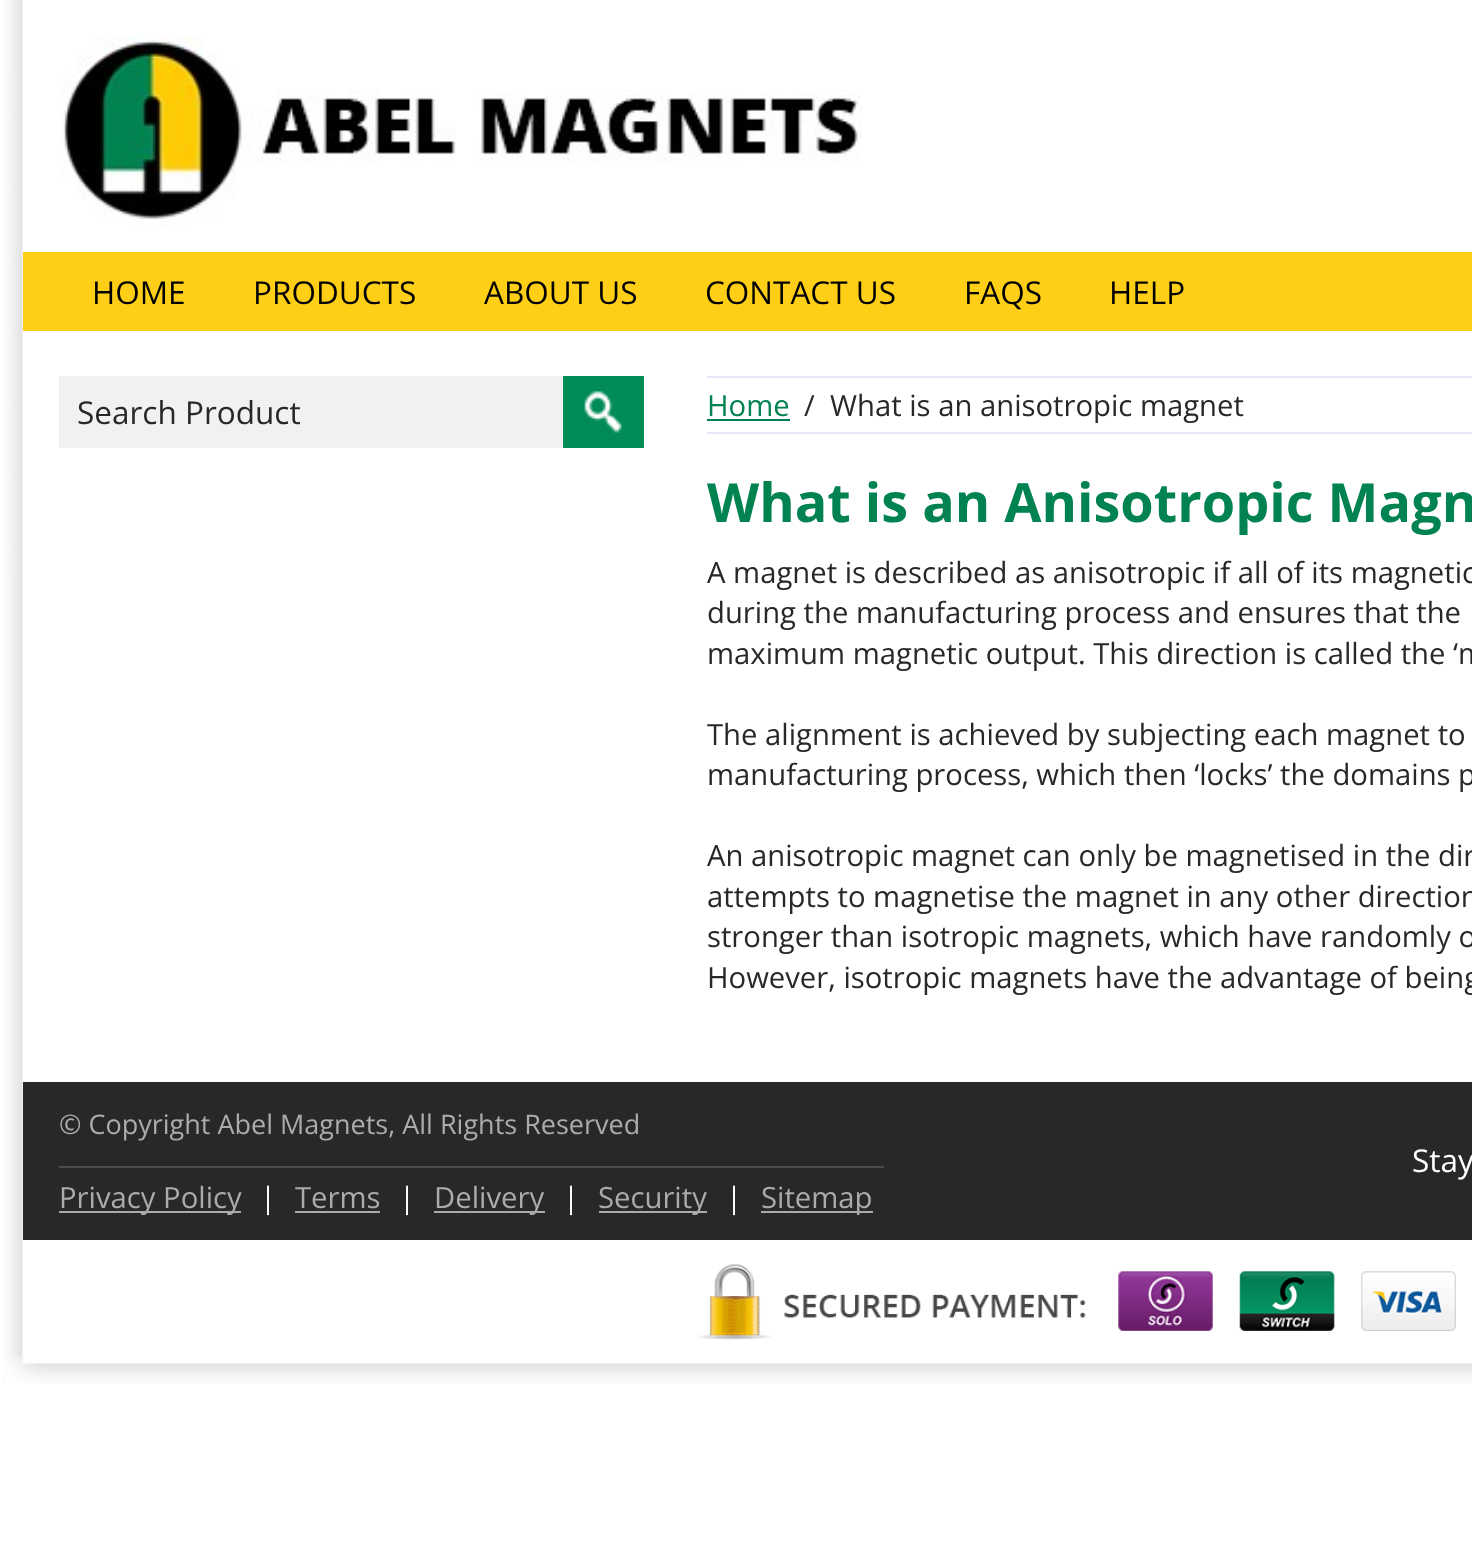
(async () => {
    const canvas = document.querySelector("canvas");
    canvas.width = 1472;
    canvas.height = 1555;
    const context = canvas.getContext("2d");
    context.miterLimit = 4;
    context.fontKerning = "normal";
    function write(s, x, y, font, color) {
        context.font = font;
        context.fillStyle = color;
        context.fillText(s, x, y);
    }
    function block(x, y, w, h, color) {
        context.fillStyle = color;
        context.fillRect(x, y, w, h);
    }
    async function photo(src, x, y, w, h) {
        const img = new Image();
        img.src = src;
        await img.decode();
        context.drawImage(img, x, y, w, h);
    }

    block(0, 0, 1472, 1555, "rgb(255, 255, 255)");
    await photo("media/1.png", 4, 0, 19, 1384);
    await photo("media/2.png", 61, 36, 801, 191);
    block(23, 252, 1449, 79, "rgb(255, 207, 23)");
    write("HOME", 92, 304, "31.5px Open Sans", "rgb(0, 0, 0)");
    write("PRODUCTS", 253, 304, "31.5px Open Sans", "rgb(0, 0, 0)");
    write("ABOUT US", 484, 304, "31.5px Open Sans", "rgb(0, 0, 0)");
    write("CONTACT US", 705, 304, "31.5px Open Sans", "rgb(0, 0, 0)");
    write("FAQS", 964, 304, "31.5px Open Sans", "rgb(0, 0, 0)");
    write("HELP", 1109, 304, "31.5px Open Sans", "rgb(0, 0, 0)");
    block(59, 376, 504, 72, "rgb(241, 241, 241)");
    write("Search Product", 77, 424, "31.5px Open Sans", "rgb(40, 40, 40)");
    block(563, 376, 81, 72, "rgb(0, 139, 87)");
    await photo("media/3.png", 584, 391, 38, 42);
    block(707, 376, 765, 2, "rgb(230, 230, 250)");
    block(707, 432, 765, 2, "rgb(230, 230, 250)");
    write("Home", 707, 416, "29.25px Open Sans", "rgb(0, 130, 81)");
    block(707, 419, 83, 2, "rgb(0, 130, 81)");
    write("/", 804, 416, "29.25px Open Sans", "rgb(40, 40, 40)");
    write("What is an anisotropic magnet", 830, 416, "29.25px Open Sans", "rgb(40, 40, 40)");
    write("What is an Anisotropic Magn", 707, 522, "bold 54px Open Sans", "rgb(0, 130, 81)");
    write("A magnet is described as anisotropic if all of its magnetic", 707, 583, "29.25px Open Sans", "rgb(40, 40, 40)");
    write("during the manufacturing process and ensures that the", 707, 623, "29.25px Open Sans", "rgb(40, 40, 40)");
    write("maximum magnetic output. This direction is called the ‘m", 707, 664, "29.25px Open Sans", "rgb(40, 40, 40)");
    write("The alignment is achieved by subjecting each magnet to", 707, 745, "29.25px Open Sans", "rgb(40, 40, 40)");
    write("manufacturing process, which then ‘locks’ the domains p", 707, 785, "29.25px Open Sans", "rgb(40, 40, 40)");
    write("An anisotropic magnet can only be magnetised in the dir", 707, 866, "29.25px Open Sans", "rgb(40, 40, 40)");
    write("attempts to magnetise the magnet in any other direction", 707, 907, "29.25px Open Sans", "rgb(40, 40, 40)");
    write("stronger than isotropic magnets, which have randomly o", 707, 947, "29.25px Open Sans", "rgb(40, 40, 40)");
    write("However, isotropic magnets have the advantage of being", 707, 988, "29.25px Open Sans", "rgb(40, 40, 40)");
    block(23, 1082, 1449, 158, "rgb(40, 40, 40)");
    write("© Copyright Abel Magnets, All Rights Reserved", 59, 1134, "27px Open Sans", "rgb(171, 171, 171)");
    block(59, 1166, 825, 2, "rgb(76, 76, 76)");
    block(59, 1211, 182, 2, "rgb(171, 171, 171)");
    write("Privacy Policy", 59, 1208, "29.25px Open Sans", "rgb(171, 171, 171)");
    write("|", 260, 1208, "29.25px Open Sans", "rgb(255, 255, 255)");
    write("Terms", 295, 1208, "29.25px Open Sans", "rgb(171, 171, 171)");
    block(295, 1211, 85, 2, "rgb(171, 171, 171)");
    write("|", 399, 1208, "29.25px Open Sans", "rgb(255, 255, 255)");
    block(434, 1211, 111, 2, "rgb(171, 171, 171)");
    write("Delivery", 434, 1208, "29.25px Open Sans", "rgb(171, 171, 171)");
    write("|", 563, 1208, "29.25px Open Sans", "rgb(255, 255, 255)");
    block(599, 1211, 108, 2, "rgb(171, 171, 171)");
    write("Security", 598, 1208, "29.25px Open Sans", "rgb(171, 171, 171)");
    write("|", 726, 1208, "29.25px Open Sans", "rgb(255, 255, 255)");
    block(761, 1211, 112, 2, "rgb(171, 171, 171)");
    write("Sitemap", 761, 1208, "29.25px Open Sans", "rgb(171, 171, 171)");
    write("Stay", 1412, 1172, "31.5px Open Sans", "rgb(255, 255, 255)");
    await photo("media/4.png", 698, 1264, 388, 76);
    await photo("media/5.png", 1118, 1271, 338, 60);
    await photo("media/6.png", 5, 1355, 1467, 29);
})();
